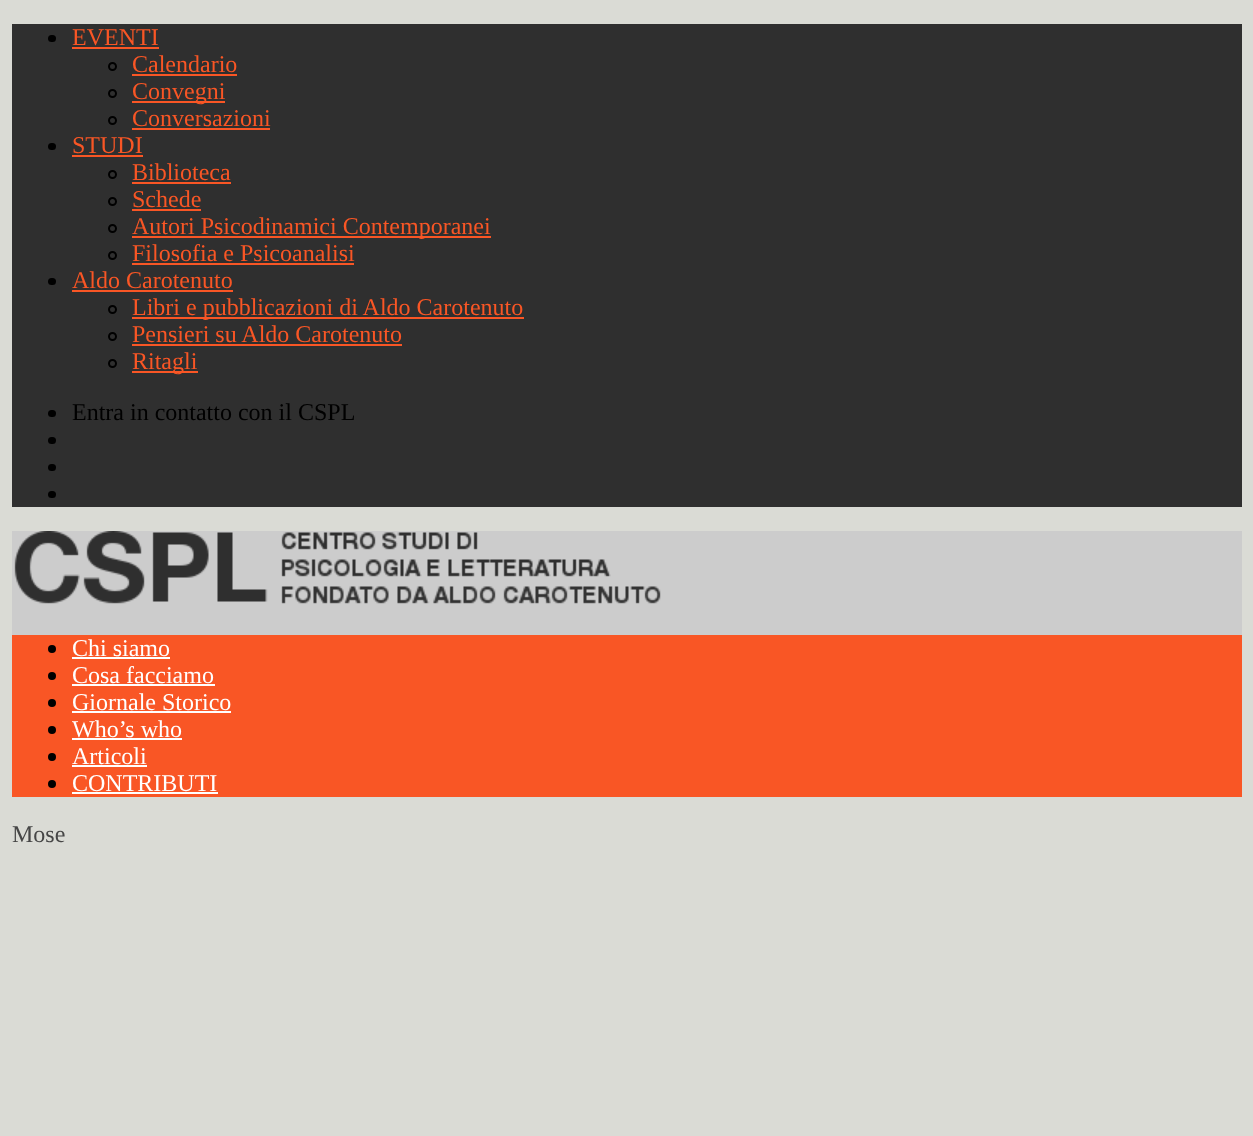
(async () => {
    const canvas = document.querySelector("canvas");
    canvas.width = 1253;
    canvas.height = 1136;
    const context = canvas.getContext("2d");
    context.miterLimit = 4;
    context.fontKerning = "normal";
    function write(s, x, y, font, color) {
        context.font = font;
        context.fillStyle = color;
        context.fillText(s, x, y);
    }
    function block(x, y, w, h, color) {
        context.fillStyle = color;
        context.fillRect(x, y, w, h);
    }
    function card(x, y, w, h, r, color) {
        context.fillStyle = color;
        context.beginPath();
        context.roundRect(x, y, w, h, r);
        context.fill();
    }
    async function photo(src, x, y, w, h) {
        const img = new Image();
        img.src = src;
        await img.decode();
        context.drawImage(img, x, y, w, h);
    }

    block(0, 0, 1253, 1136, "rgb(218, 219, 213)");
    block(12, 24, 1230, 483, "rgb(47, 47, 47)");
    card(48, 35, 8, 7, 3.5, "rgb(0, 0, 0)");
    write("EVENTI", 72, 45, "24px Liberation Serif", "rgb(249, 86, 37)");
    block(72, 47, 87, 2, "rgb(249, 86, 37)");
    context.beginPath();
    context.arc(112.5, 66.5, 3.5, 0, Math.PI * 2);
    context.strokeStyle = "rgb(0, 0, 0)";
    context.lineWidth = 2;
    context.stroke();
    write("Calendario", 132, 72, "24px Liberation Serif", "rgb(249, 86, 37)");
    block(132, 74, 105, 2, "rgb(249, 86, 37)");
    context.beginPath();
    context.arc(112.5, 93.5, 3.5, 0, Math.PI * 2);
    context.stroke();
    block(132, 101, 93, 2, "rgb(249, 86, 37)");
    write("Convegni", 132, 99, "24px Liberation Serif", "rgb(249, 86, 37)");
    context.beginPath();
    context.arc(112.5, 120.5, 3.5, 0, Math.PI * 2);
    context.stroke();
    write("Conversazioni", 132, 126, "24px Liberation Serif", "rgb(249, 86, 37)");
    block(132, 128, 138, 2, "rgb(249, 86, 37)");
    card(48, 143, 8, 7, 3.5, "rgb(0, 0, 0)");
    write("STUDI", 72, 153, "24px Liberation Serif", "rgb(249, 86, 37)");
    block(72, 155, 71, 2, "rgb(249, 86, 37)");
    context.beginPath();
    context.arc(112.5, 174.5, 3.5, 0, Math.PI * 2);
    context.stroke();
    write("Biblioteca", 132, 180, "24px Liberation Serif", "rgb(249, 86, 37)");
    block(132, 182, 99, 2, "rgb(249, 86, 37)");
    context.beginPath();
    context.arc(112.5, 201.5, 3.5, 0, Math.PI * 2);
    context.stroke();
    write("Schede", 132, 207, "24px Liberation Serif", "rgb(249, 86, 37)");
    block(132, 209, 69, 2, "rgb(249, 86, 37)");
    context.beginPath();
    context.arc(112.5, 228.5, 3.5, 0, Math.PI * 2);
    context.stroke();
    block(132, 236, 359, 2, "rgb(249, 86, 37)");
    write("Autori Psicodinamici Contemporanei", 132, 234, "24px Liberation Serif", "rgb(249, 86, 37)");
    context.beginPath();
    context.arc(112.5, 255.5, 3.5, 0, Math.PI * 2);
    context.stroke();
    write("Filosofia e Psicoanalisi", 132, 261, "24px Liberation Serif", "rgb(249, 86, 37)");
    block(132, 263, 222, 2, "rgb(249, 86, 37)");
    card(48, 278, 8, 7, 3.5, "rgb(0, 0, 0)");
    write("Aldo Carotenuto", 72, 288, "24px Liberation Serif", "rgb(249, 86, 37)");
    block(72, 290, 161, 2, "rgb(249, 86, 37)");
    context.beginPath();
    context.arc(112.5, 309.5, 3.5, 0, Math.PI * 2);
    context.stroke();
    block(132, 317, 392, 2, "rgb(249, 86, 37)");
    write("Libri e pubblicazioni di Aldo Carotenuto", 132, 315, "24px Liberation Serif", "rgb(249, 86, 37)");
    context.beginPath();
    context.arc(112.5, 336.5, 3.5, 0, Math.PI * 2);
    context.stroke();
    write("Pensieri su Aldo Carotenuto", 132, 342, "24px Liberation Serif", "rgb(249, 86, 37)");
    block(132, 344, 270, 2, "rgb(249, 86, 37)");
    context.beginPath();
    context.arc(112.5, 363.5, 3.5, 0, Math.PI * 2);
    context.stroke();
    block(132, 371, 66, 2, "rgb(249, 86, 37)");
    write("Ritagli", 132, 369, "24px Liberation Serif", "rgb(249, 86, 37)");
    card(48, 410, 8, 7, 3.5, "rgb(0, 0, 0)");
    write("Entra in contatto con il CSPL", 72, 420, "24px Liberation Serif", "rgb(0, 0, 0)");
    card(48, 437, 8, 7, 3.5, "rgb(0, 0, 0)");
    card(48, 464, 8, 7, 3.5, "rgb(0, 0, 0)");
    card(48, 491, 8, 7, 3.5, "rgb(0, 0, 0)");
    block(12, 531, 1230, 104, "rgb(204, 204, 204)");
    await photo("media/1.png", 14, 531, 647, 73);
    block(12, 635, 1230, 162, "rgb(249, 86, 37)");
    context.fillStyle = "rgb(0, 0, 0)";
    context.beginPath();
    context.arc(52, 649, 4, 0, Math.PI * 2);
    context.fill();
    write("Chi siamo", 72, 656, "24px Liberation Serif", "rgb(255, 255, 255)");
    block(72, 657, 98, 2, "rgb(255, 255, 255)");
    context.fillStyle = "rgb(0, 0, 0)";
    context.beginPath();
    context.arc(52, 676, 4, 0, Math.PI * 2);
    context.fill();
    write("Cosa facciamo", 72, 683, "24px Liberation Serif", "rgb(255, 255, 255)");
    block(72, 684, 143, 2, "rgb(255, 255, 255)");
    context.fillStyle = "rgb(0, 0, 0)";
    context.beginPath();
    context.arc(52, 703, 4, 0, Math.PI * 2);
    context.fill();
    write("Giornale Storico", 72, 710, "24px Liberation Serif", "rgb(255, 255, 255)");
    block(72, 711, 159, 2, "rgb(255, 255, 255)");
    context.fillStyle = "rgb(0, 0, 0)";
    context.beginPath();
    context.arc(52, 730, 4, 0, Math.PI * 2);
    context.fill();
    write("Who’s who", 72, 737, "24px Liberation Serif", "rgb(255, 255, 255)");
    block(72, 738, 110, 2, "rgb(255, 255, 255)");
    context.fillStyle = "rgb(0, 0, 0)";
    context.beginPath();
    context.arc(52, 757, 4, 0, Math.PI * 2);
    context.fill();
    write("Articoli", 72, 764, "24px Liberation Serif", "rgb(255, 255, 255)");
    block(72, 765, 75, 2, "rgb(255, 255, 255)");
    context.fillStyle = "rgb(0, 0, 0)";
    context.beginPath();
    context.arc(52, 784, 4, 0, Math.PI * 2);
    context.fill();
    write("CONTRIBUTI", 72, 791, "24px Liberation Serif", "rgb(255, 255, 255)");
    block(72, 792, 146, 2, "rgb(255, 255, 255)");
    write("Mose", 12, 842, "24px Liberation Serif", "rgb(70, 70, 70)");
})();
